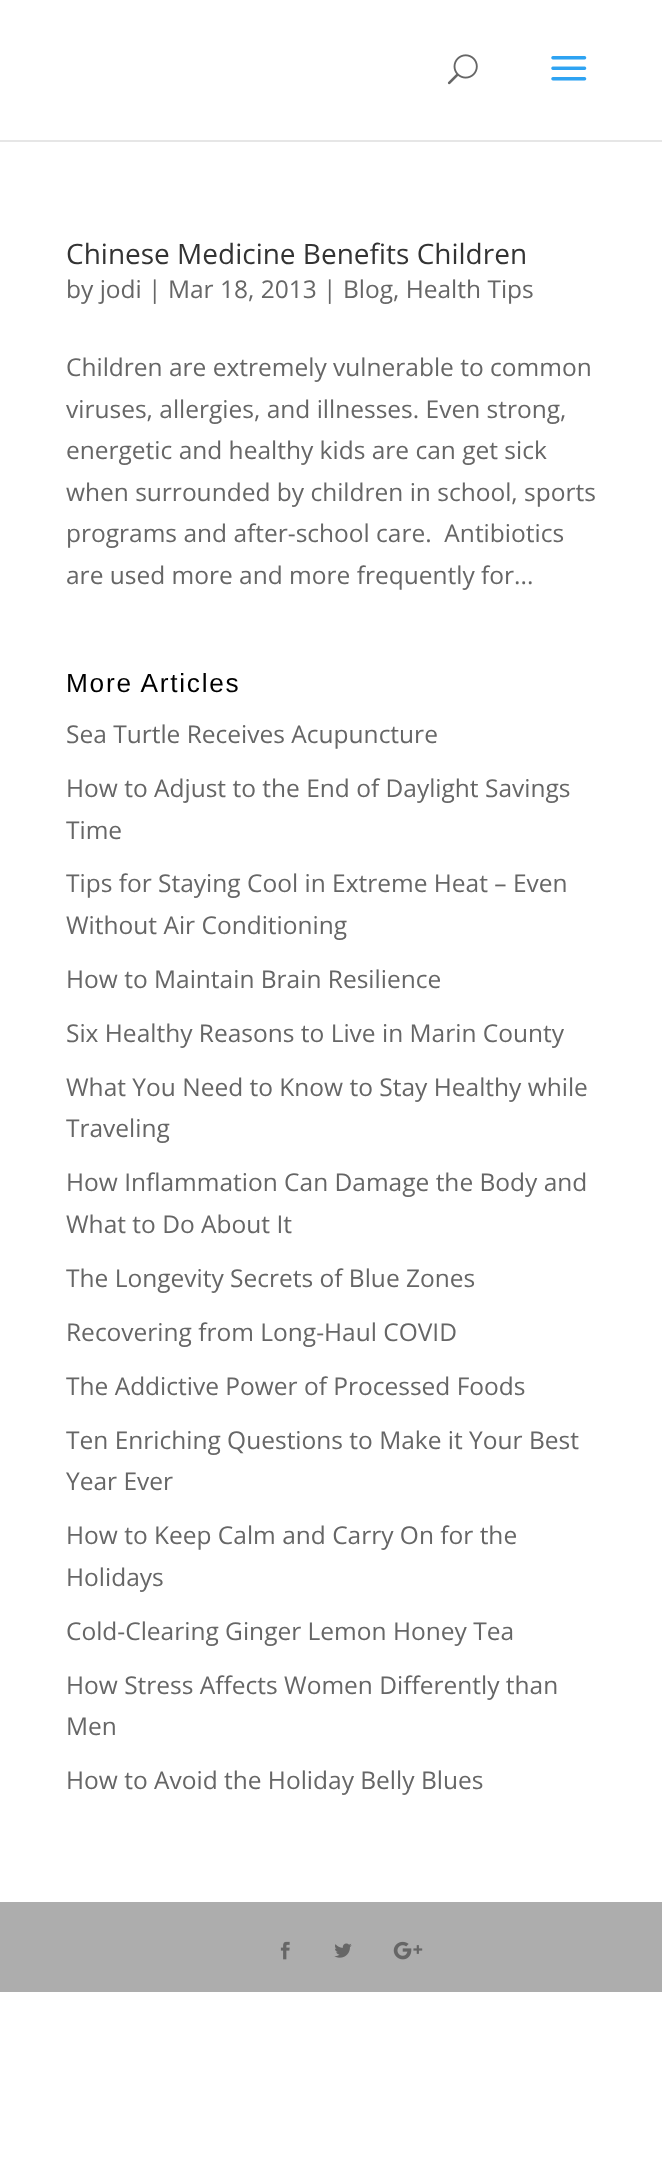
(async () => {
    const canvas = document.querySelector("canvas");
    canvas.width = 662;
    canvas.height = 2180;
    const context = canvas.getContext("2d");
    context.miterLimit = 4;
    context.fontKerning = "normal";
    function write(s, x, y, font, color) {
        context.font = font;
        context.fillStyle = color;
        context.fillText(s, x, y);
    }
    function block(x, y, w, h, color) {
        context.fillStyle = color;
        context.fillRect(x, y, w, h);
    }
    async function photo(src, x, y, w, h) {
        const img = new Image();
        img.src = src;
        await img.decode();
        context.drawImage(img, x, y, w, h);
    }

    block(0, 0, 662, 2180, "rgb(255, 255, 255)");
    block(0, 140, 662, 2, "rgb(230, 230, 230)");
    await photo("media/1.png", 447, 54, 31, 31);
    await photo("media/2.png", 551, 56, 36, 25);
    write("Chinese Medicine Benefits Children", 66, 264, "28px Open Sans", "rgb(51, 51, 51)");
    write("by jodi | Mar 18, 2013 | Blog, Health Tips", 66, 298, "24.5px Open Sans", "rgb(102, 102, 102)");
    write("Children are extremely vulnerable to common", 66, 376, "24.5px Open Sans", "rgb(102, 102, 102)");
    write("viruses, allergies, and illnesses. Even strong,", 66, 418, "24.5px Open Sans", "rgb(102, 102, 102)");
    write("energetic and healthy kids are can get sick", 66, 459, "24.5px Open Sans", "rgb(102, 102, 102)");
    write("when surrounded by children in school, sports", 66, 501, "24.5px Open Sans", "rgb(102, 102, 102)");
    write("programs and after-school care.  Antibiotics", 66, 542, "24.5px Open Sans", "rgb(102, 102, 102)");
    write("are used more and more frequently for...", 66, 584, "24.5px Open Sans", "rgb(102, 102, 102)");
    context.letterSpacing = "1.75px";
    write("More Articles", 66, 692, "26.25px Liberation Sans", "rgb(0, 0, 0)");
    context.letterSpacing = "0px";
    write("Sea Turtle Receives Acupuncture", 66, 743, "24.5px Open Sans", "rgb(102, 102, 102)");
    write("How to Adjust to the End of Daylight Savings", 66, 797, "24.5px Open Sans", "rgb(102, 102, 102)");
    write("Time", 66, 839, "24.5px Open Sans", "rgb(102, 102, 102)");
    write("Tips for Staying Cool in Extreme Heat – Even", 66, 892, "24.5px Open Sans", "rgb(102, 102, 102)");
    write("Without Air Conditioning", 66, 934, "24.5px Open Sans", "rgb(102, 102, 102)");
    write("How to Maintain Brain Resilience", 66, 988, "24.5px Open Sans", "rgb(102, 102, 102)");
    write("Six Healthy Reasons to Live in Marin County", 66, 1042, "24.5px Open Sans", "rgb(102, 102, 102)");
    write("What You Need to Know to Stay Healthy while", 66, 1096, "24.5px Open Sans", "rgb(102, 102, 102)");
    write("Traveling", 66, 1137, "24.5px Open Sans", "rgb(102, 102, 102)");
    write("How Inflammation Can Damage the Body and", 66, 1191, "24.5px Open Sans", "rgb(102, 102, 102)");
    write("What to Do About It", 66, 1233, "24.5px Open Sans", "rgb(102, 102, 102)");
    write("The Longevity Secrets of Blue Zones", 66, 1287, "24.5px Open Sans", "rgb(102, 102, 102)");
    write("Recovering from Long-Haul COVID", 66, 1341, "24.5px Open Sans", "rgb(102, 102, 102)");
    write("The Addictive Power of Processed Foods", 66, 1395, "24.5px Open Sans", "rgb(102, 102, 102)");
    write("Ten Enriching Questions to Make it Your Best", 66, 1449, "24.5px Open Sans", "rgb(102, 102, 102)");
    write("Year Ever", 66, 1490, "24.5px Open Sans", "rgb(102, 102, 102)");
    write("How to Keep Calm and Carry On for the", 66, 1544, "24.5px Open Sans", "rgb(102, 102, 102)");
    write("Holidays", 66, 1586, "24.5px Open Sans", "rgb(102, 102, 102)");
    write("Cold-Clearing Ginger Lemon Honey Tea", 66, 1640, "24.5px Open Sans", "rgb(102, 102, 102)");
    write("How Stress Affects Women Differently than", 66, 1694, "24.5px Open Sans", "rgb(102, 102, 102)");
    write("Men", 66, 1735, "24.5px Open Sans", "rgb(102, 102, 102)");
    write("How to Avoid the Holiday Belly Blues", 66, 1789, "24.5px Open Sans", "rgb(102, 102, 102)");
    block(0, 1902, 662, 90, "rgb(173, 173, 173)");
    await photo("media/3.png", 280, 1941, 10, 19);
    await photo("media/4.png", 334, 1943, 18, 15);
    await photo("media/5.png", 393, 1941, 30, 19);
})();
